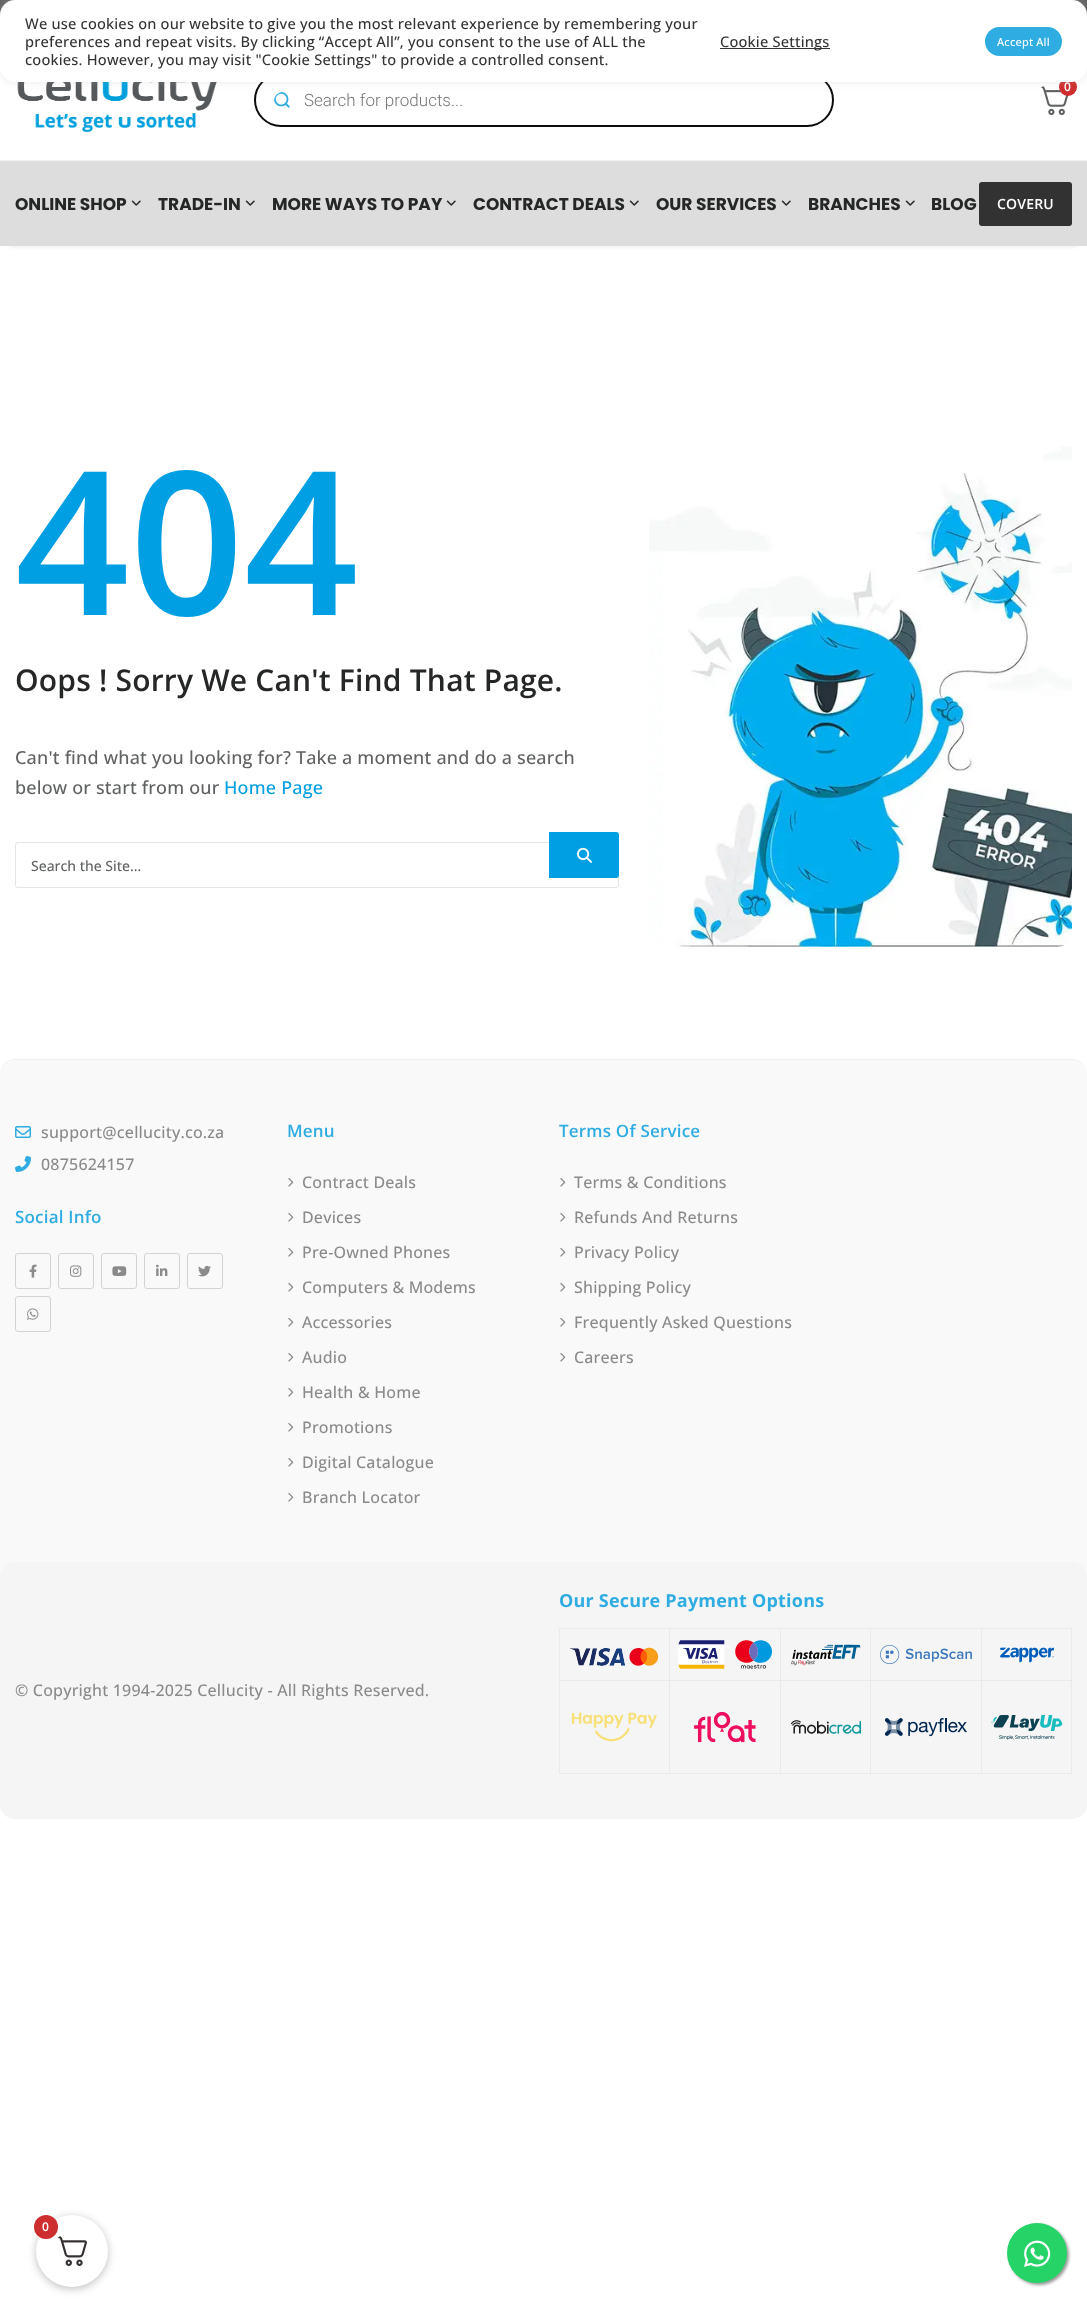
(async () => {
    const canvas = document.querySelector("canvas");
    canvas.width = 1087;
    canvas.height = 2323;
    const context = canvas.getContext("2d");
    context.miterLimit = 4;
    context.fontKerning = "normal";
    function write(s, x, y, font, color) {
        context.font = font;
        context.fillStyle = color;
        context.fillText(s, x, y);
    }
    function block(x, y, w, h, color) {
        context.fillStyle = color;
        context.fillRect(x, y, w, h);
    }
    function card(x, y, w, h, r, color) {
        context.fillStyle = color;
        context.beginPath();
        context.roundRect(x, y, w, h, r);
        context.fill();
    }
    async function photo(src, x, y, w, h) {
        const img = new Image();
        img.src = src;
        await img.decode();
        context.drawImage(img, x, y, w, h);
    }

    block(0, 0, 1087, 2323, "rgb(255, 255, 255)");
    context.fillStyle = "rgba(0, 0, 0, 0.05)";
    context.filter = "blur(1.5px)";
    context.beginPath();
    context.roundRect(0, 2, 1087, 246, 15);
    context.fill();
    context.filter = "none";
    block(0, 67, 1087, 93, "rgb(255, 255, 255)");
    block(0, 0, 1087, 15, "rgb(99, 99, 99)");
    await photo("media/1.png", 17, 82, 200, 51);
    await photo("media/2.png", 1041, 86, 28, 30);
    context.fillStyle = "rgb(207, 46, 46)";
    context.beginPath();
    context.arc(1068, 87, 9, 0, Math.PI * 2);
    context.fill();
    context.beginPath();
    context.roundRect(255, 74, 578, 52, 26);
    context.strokeStyle = "rgb(12, 12, 12)";
    context.lineWidth = 2;
    context.stroke();
    await photo("media/3.png", 274, 92, 16, 16);
    context.fillStyle = "rgba(172, 171, 171, 0.3)";
    context.filter = "blur(5px)";
    context.beginPath();
    context.roundRect(0, -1, 1087, 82, 15);
    context.fill();
    context.filter = "none";
    card(0, 0, 1087, 82, 15, "rgb(255, 255, 255)");
    context.letterSpacing = "0.2px";
    write("We use cookies on our website to give you the most relevant experience by remembering your", 25, 29, "500 14.65px Open Sans", "rgb(51, 51, 51)");
    write("preferences and repeat visits. By clicking “Accept All”, you consent to the use of ALL the", 25, 47, "500 14.65px Open Sans", "rgb(51, 51, 51)");
    write("cookies. However, you may visit \"Cookie Settings\" to provide a controlled consent.", 25, 65, "500 14.65px Open Sans", "rgb(51, 51, 51)");
    block(720, 48, 110, 1, "rgb(51, 51, 51)");
    write("Cookie Settings", 720, 47, "500 14.65px Open Sans", "rgb(51, 51, 51)");
    card(985, 27, 77, 29, 14.5, "rgb(47, 172, 226)");
    write("Accept All", 997, 46, "500 11px Open Sans", "rgb(255, 255, 255)");
    block(0, 160, 1087, 1, "rgb(241, 241, 241)");
    write("0", 1064, 91, "600 12px Open Sans", "rgb(255, 255, 255)");
    context.letterSpacing = "0px";
    write("Search for products...", 304, 106, "300 17px Roboto", "rgb(119, 119, 119)");
    block(0, 161, 1087, 85, "rgb(221, 221, 221)");
    write("ONLINE SHOP", 15, 210, "bold 17px Poppins", "rgb(37, 38, 38)");
    await photo("media/4.png", 131, 200, 10, 6);
    write("TRADE-IN", 158, 210, "bold 17px Poppins", "rgb(37, 38, 38)");
    await photo("media/4.png", 245, 200, 10, 6);
    write("MORE WAYS TO PAY", 272, 210, "bold 17px Poppins", "rgb(37, 38, 38)");
    await photo("media/4.png", 446, 200, 10, 6);
    write("CONTRACT DEALS", 473, 210, "bold 17px Poppins", "rgb(37, 38, 38)");
    await photo("media/4.png", 629, 200, 10, 6);
    write("OUR SERVICES", 656, 210, "bold 17px Poppins", "rgb(37, 38, 38)");
    await photo("media/4.png", 781, 200, 10, 6);
    write("BRANCHES", 808, 210, "bold 17px Poppins", "rgb(37, 38, 38)");
    await photo("media/4.png", 905, 200, 10, 6);
    write("BLOG", 931, 210, "bold 17px Poppins", "rgb(37, 38, 38)");
    card(979, 182, 93, 44, 3, "rgb(50, 50, 50)");
    context.letterSpacing = "0.2px";
    write("COVERU", 997, 209, "600 14px Open Sans", "rgb(255, 255, 255)");
    write("404", 15, 615, "600 200px Open Sans", "rgb(0, 158, 226)");
    write("Oops ! Sorry We Can't Find That Page.", 15, 691, "600 30px Open Sans", "rgb(37, 38, 38)");
    write("Can't find what you looking for? Take a moment and do a search", 15, 764, "500 18px Open Sans", "rgb(95, 97, 98)");
    write("below or start from our", 15, 794, "500 18px Open Sans", "rgb(95, 97, 98)");
    write("Home Page", 224, 794, "500 18px Open Sans", "rgb(0, 158, 226)");
    context.beginPath();
    context.roundRect(15.5, 842.5, 603, 45, 2.5);
    context.strokeStyle = "rgb(229, 229, 229)";
    context.lineWidth = 1;
    context.stroke();
    context.letterSpacing = "0px";
    write("Search the Site…", 31, 871, "500 14px Open Sans", "rgb(95, 97, 98)");
    context.fillStyle = "rgb(0, 158, 226)";
    context.beginPath();
    context.roundRect(549, 832, 70, 46, [0, 3, 3, 0]);
    context.fill();
    await photo("media/5.png", 577, 847, 15, 16);
    await photo("media/6.png", 649, 446, 423, 501);
    context.fillStyle = "rgb(153, 153, 153)";
    context.filter = "blur(1.5px)";
    context.beginPath();
    context.roundRect(1009, 2225, 60, 60, 30);
    context.fill();
    context.filter = "none";
    context.fillStyle = "rgb(37, 211, 102)";
    context.beginPath();
    context.arc(1037, 2253, 30, 0, Math.PI * 2);
    context.fill();
    await photo("media/7.png", 1024, 2240, 27, 27);
    context.fillStyle = "rgb(240, 240, 240)";
    context.beginPath();
    context.moveTo(15, 1059);
    context.bezierCurveTo(6, 1059, 0, 1066, 0, 1075);
    context.bezierCurveTo(0, 1067, 7, 1060, 15, 1060);
    context.lineTo(1072, 1060);
    context.bezierCurveTo(1080, 1060, 1087, 1067, 1087, 1075);
    context.bezierCurveTo(1087, 1066, 1081, 1059, 1072, 1059);
    context.closePath();
    context.fill();
    card(0, 1060, 1087, 759, 15, "rgb(249, 249, 249)");
    await photo("media/8.png", 15, 1126, 16, 12);
    context.letterSpacing = "0.2px";
    write("support@cellucity.co.za", 41, 1138, "500 16px Open Sans", "rgb(138, 138, 138)");
    await photo("media/9.png", 15, 1156, 16, 16);
    write("0875624157", 41, 1170, "500 16px Open Sans", "rgb(138, 138, 138)");
    write("Social Info", 15, 1223, "600 17px Open Sans", "rgb(47, 172, 226)");
    context.beginPath();
    context.roundRect(15.5, 1253.5, 35, 35, 2.5);
    context.strokeStyle = "rgb(211, 211, 211)";
    context.stroke();
    await photo("media/10.png", 29, 1264, 8, 14);
    context.beginPath();
    context.roundRect(58.5, 1253.5, 35, 35, 2.5);
    context.stroke();
    await photo("media/11.png", 70, 1265, 12, 12);
    context.beginPath();
    context.roundRect(101.5, 1253.5, 35, 35, 2.5);
    context.stroke();
    await photo("media/12.png", 112, 1266, 15, 10);
    context.beginPath();
    context.roundRect(144.5, 1253.5, 35, 35, 2.5);
    context.stroke();
    await photo("media/13.png", 156, 1264, 12, 12);
    context.beginPath();
    context.roundRect(187.5, 1253.5, 35, 35, 2.5);
    context.stroke();
    await photo("media/14.png", 198, 1265, 13, 12);
    context.beginPath();
    context.roundRect(15.5, 1296.5, 35, 35, 2.5);
    context.stroke();
    await photo("media/15.png", 27, 1308, 12, 12);
    write("Menu", 287, 1137, "600 17px Open Sans", "rgb(47, 172, 226)");
    await photo("media/16.png", 288, 1178, 6, 9);
    write("Contract Deals", 302, 1188, "500 16px Open Sans", "rgb(138, 138, 138)");
    await photo("media/16.png", 288, 1213, 6, 9);
    write("Devices", 302, 1223, "500 16px Open Sans", "rgb(138, 138, 138)");
    await photo("media/16.png", 288, 1248, 6, 9);
    write("Pre-Owned Phones", 302, 1258, "500 16px Open Sans", "rgb(138, 138, 138)");
    await photo("media/16.png", 288, 1283, 6, 9);
    write("Computers & Modems", 302, 1293, "500 16px Open Sans", "rgb(138, 138, 138)");
    await photo("media/16.png", 288, 1318, 6, 9);
    write("Accessories", 302, 1328, "500 16px Open Sans", "rgb(138, 138, 138)");
    await photo("media/16.png", 288, 1353, 6, 9);
    write("Audio", 302, 1363, "500 16px Open Sans", "rgb(138, 138, 138)");
    await photo("media/16.png", 288, 1388, 6, 9);
    write("Health & Home", 302, 1398, "500 16px Open Sans", "rgb(138, 138, 138)");
    await photo("media/16.png", 288, 1423, 6, 9);
    write("Promotions", 302, 1433, "500 16px Open Sans", "rgb(138, 138, 138)");
    await photo("media/16.png", 288, 1458, 6, 9);
    write("Digital Catalogue", 302, 1468, "500 16px Open Sans", "rgb(138, 138, 138)");
    await photo("media/16.png", 288, 1493, 6, 9);
    write("Branch Locator", 302, 1503, "500 16px Open Sans", "rgb(138, 138, 138)");
    write("Terms Of Service", 559, 1137, "600 17px Open Sans", "rgb(47, 172, 226)");
    await photo("media/16.png", 560, 1178, 6, 9);
    write("Terms & Conditions", 574, 1188, "500 16px Open Sans", "rgb(138, 138, 138)");
    await photo("media/16.png", 560, 1213, 6, 9);
    write("Refunds And Returns", 574, 1223, "500 16px Open Sans", "rgb(138, 138, 138)");
    await photo("media/16.png", 560, 1248, 6, 9);
    write("Privacy Policy", 574, 1258, "500 16px Open Sans", "rgb(138, 138, 138)");
    await photo("media/16.png", 560, 1283, 6, 9);
    write("Shipping Policy", 574, 1293, "500 16px Open Sans", "rgb(138, 138, 138)");
    await photo("media/16.png", 560, 1318, 6, 9);
    write("Frequently Asked Questions", 574, 1328, "500 16px Open Sans", "rgb(138, 138, 138)");
    await photo("media/16.png", 560, 1353, 6, 9);
    write("Careers", 574, 1363, "500 16px Open Sans", "rgb(138, 138, 138)");
    card(0, 1562, 1087, 257, 15, "rgb(245, 245, 245)");
    write("Our Secure Payment Options", 559, 1607, "bold 18px Open Sans", "rgb(47, 172, 226)");
    block(981, 1628, 91, 1, "rgb(234, 234, 234)");
    block(981, 1680, 91, 1, "rgb(234, 234, 234)");
    block(1071, 1680, 1, 94, "rgb(234, 234, 234)");
    block(981, 1773, 91, 1, "rgb(234, 234, 234)");
    block(981, 1680, 1, 94, "rgb(234, 234, 234)");
    block(870, 1680, 112, 1, "rgb(234, 234, 234)");
    block(981, 1628, 1, 53, "rgb(234, 234, 234)");
    block(870, 1628, 112, 1, "rgb(234, 234, 234)");
    block(870, 1773, 112, 1, "rgb(234, 234, 234)");
    block(870, 1680, 1, 94, "rgb(234, 234, 234)");
    block(780, 1680, 91, 1, "rgb(234, 234, 234)");
    block(870, 1628, 1, 53, "rgb(234, 234, 234)");
    block(780, 1628, 91, 1, "rgb(234, 234, 234)");
    block(780, 1773, 91, 1, "rgb(234, 234, 234)");
    block(780, 1680, 1, 94, "rgb(234, 234, 234)");
    block(669, 1680, 112, 1, "rgb(234, 234, 234)");
    block(780, 1628, 1, 53, "rgb(234, 234, 234)");
    block(669, 1628, 112, 1, "rgb(234, 234, 234)");
    block(669, 1773, 112, 1, "rgb(234, 234, 234)");
    block(669, 1680, 1, 94, "rgb(234, 234, 234)");
    block(559, 1680, 111, 1, "rgb(234, 234, 234)");
    block(669, 1628, 1, 53, "rgb(234, 234, 234)");
    block(559, 1628, 111, 1, "rgb(234, 234, 234)");
    block(559, 1773, 111, 1, "rgb(234, 234, 234)");
    block(559, 1680, 1, 94, "rgb(234, 234, 234)");
    block(559, 1628, 1, 53, "rgb(234, 234, 234)");
    await photo("media/17.png", 570, 1647, 89, 19);
    await photo("media/18.png", 678, 1640, 94, 29);
    await photo("media/19.png", 791, 1644, 70, 22);
    await photo("media/20.png", 880, 1644, 92, 21);
    block(1071, 1628, 1, 53, "rgb(234, 234, 234)");
    await photo("media/21.png", 1000, 1647, 54, 16);
    await photo("media/22.png", 571, 1712, 86, 30);
    await photo("media/23.png", 694, 1711, 62, 32);
    await photo("media/24.png", 791, 1720, 71, 14);
    await photo("media/25.png", 884, 1718, 83, 19);
    await photo("media/26.png", 991, 1715, 72, 25);
    write("© Copyright 1994-2025 Cellucity - All Rights Reserved.", 15, 1696, "500 16px Open Sans", "rgb(138, 138, 138)");
    context.fillStyle = "rgba(0, 0, 0, 0.25)";
    context.filter = "blur(4px)";
    context.beginPath();
    context.roundRect(36, 2217, 72, 72, 36);
    context.fill();
    context.filter = "none";
    context.fillStyle = "rgb(255, 255, 255)";
    context.beginPath();
    context.arc(72, 2251, 36, 0, Math.PI * 2);
    context.fill();
    await photo("media/27.png", 58, 2236, 29, 30);
    context.fillStyle = "rgb(207, 46, 46)";
    context.beginPath();
    context.arc(46, 2227, 12, 0, Math.PI * 2);
    context.fill();
    write("0", 42, 2231, "600 12px Open Sans", "rgb(255, 255, 255)");
})();
